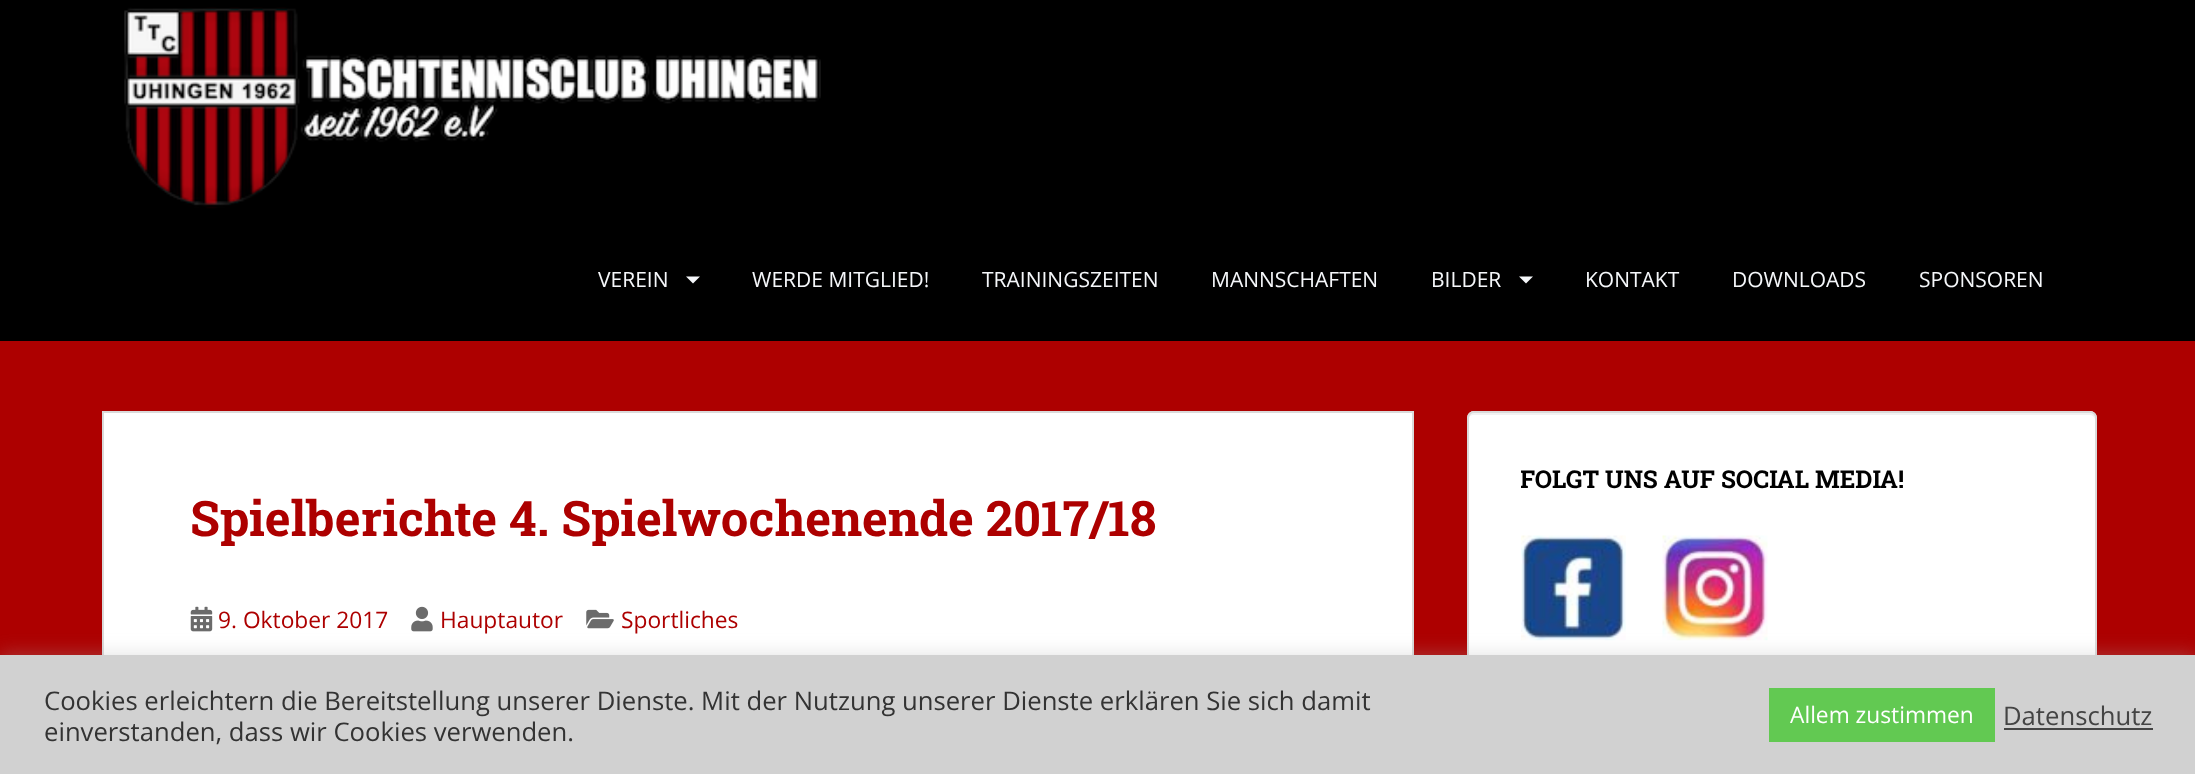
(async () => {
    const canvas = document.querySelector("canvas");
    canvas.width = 2195;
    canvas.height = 774;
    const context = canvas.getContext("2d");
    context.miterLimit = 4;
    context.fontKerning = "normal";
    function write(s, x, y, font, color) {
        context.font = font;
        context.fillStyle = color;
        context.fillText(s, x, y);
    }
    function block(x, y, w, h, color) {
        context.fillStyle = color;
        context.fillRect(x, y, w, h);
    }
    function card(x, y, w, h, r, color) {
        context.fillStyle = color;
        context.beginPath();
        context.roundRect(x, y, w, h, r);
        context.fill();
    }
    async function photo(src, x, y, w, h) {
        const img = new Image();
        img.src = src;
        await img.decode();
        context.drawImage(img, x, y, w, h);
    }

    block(0, 0, 2195, 774, "rgb(173, 0, 0)");
    block(0, 0, 2195, 341, "rgb(0, 0, 0)");
    await photo("media/1.png", 124, 7, 697, 202);
    write("VEREIN", 598, 287, "21px Open Sans", "rgb(245, 247, 250)");
    context.beginPath();
    context.moveTo(686, 276.5);
    context.lineTo(700, 276.5);
    context.lineTo(693, 283.5);
    context.closePath();
    context.fill();
    write("WERDE MITGLIED!", 752, 287, "21px Open Sans", "rgb(245, 247, 250)");
    write("TRAININGSZEITEN", 982, 287, "21px Open Sans", "rgb(245, 247, 250)");
    write("MANNSCHAFTEN", 1211, 287, "21px Open Sans", "rgb(245, 247, 250)");
    write("BILDER", 1431, 287, "21px Open Sans", "rgb(245, 247, 250)");
    context.beginPath();
    context.moveTo(1519, 276.5);
    context.lineTo(1533, 276.5);
    context.lineTo(1526, 283.5);
    context.closePath();
    context.fill();
    write("KONTAKT", 1585, 287, "21px Open Sans", "rgb(245, 247, 250)");
    write("DOWNLOADS", 1732, 287, "21px Open Sans", "rgb(245, 247, 250)");
    write("SPONSOREN", 1919, 287, "21px Open Sans", "rgb(245, 247, 250)");
    card(1467, 411, 630, 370, 7, "rgb(255, 255, 255)");
    context.fillStyle = "rgb(242, 242, 242)";
    context.beginPath();
    context.moveTo(1474, 415);
    context.lineTo(2090, 415);
    context.bezierCurveTo(2092, 415, 2095, 417, 2095, 420);
    context.bezierCurveTo(2095, 417, 2094, 413, 2090, 413);
    context.lineTo(1473, 413);
    context.bezierCurveTo(1469, 413, 1468, 417, 1468, 420);
    context.bezierCurveTo(1468, 417, 1471, 415, 1474, 415);
    context.closePath();
    context.fill();
    context.beginPath();
    context.roundRect(1468, 412, 628, 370, 6);
    context.strokeStyle = "rgb(218, 218, 218)";
    context.lineWidth = 2;
    context.stroke();
    context.save();
    context.beginPath();
    context.rect(1521, 466, 521, 175);
    context.clip();
    write("FOLGT UNS AUF SOCIAL MEDIA!", 1520, 488, "bold 24.5px Roboto Slab", "rgb(0, 0, 0)");
    context.restore();
    await photo("media/2.png", 1521, 535, 105, 106);
    await photo("media/3.png", 1662, 535, 106, 106);
    block(104, 413, 1308, 242, "rgb(255, 255, 255)");
    context.strokeRect(103, 412, 1310, 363);
    write("Spielberichte 4. Spielwochenende 2017/18", 190, 536, "bold 49px Roboto Slab", "rgb(173, 0, 0)");
    await photo("media/4.png", 190, 606, 23, 26);
    write("9. Oktober 2017", 218, 628, "22.75px Open Sans", "rgb(173, 0, 0)");
    await photo("media/5.png", 411, 606, 22, 26);
    write("Hauptautor", 440, 628, "22.75px Open Sans", "rgb(173, 0, 0)");
    await photo("media/6.png", 586, 609, 28, 20);
    write("Sportliches", 621, 628, "22.75px Open Sans", "rgb(173, 0, 0)");
    context.fillStyle = "rgba(172, 171, 171, 0.3)";
    context.filter = "blur(9px)";
    context.beginPath();
    context.rect(0, 653, 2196, 121);
    context.fill();
    context.filter = "none";
    block(0, 655, 2195, 119, "rgb(209, 209, 209)");
    write("Cookies erleichtern die Bereitstellung unserer Dienste. Mit der Nutzung unserer Dienste erklären Sie sich damit", 44, 710, "25.67px Open Sans", "rgb(51, 51, 51)");
    write("einverstanden, dass wir Cookies verwenden.", 44, 741, "25.67px Open Sans", "rgb(51, 51, 51)");
    block(1769, 688, 226, 54, "rgb(98, 201, 82)");
    write("Allem zustimmen", 1790, 723, "22.75px Open Sans", "rgb(255, 255, 255)");
    write("Datenschutz", 2003, 725, "25.67px Open Sans", "rgb(68, 68, 68)");
    block(2004, 728, 149, 2, "rgb(68, 68, 68)");
})();
